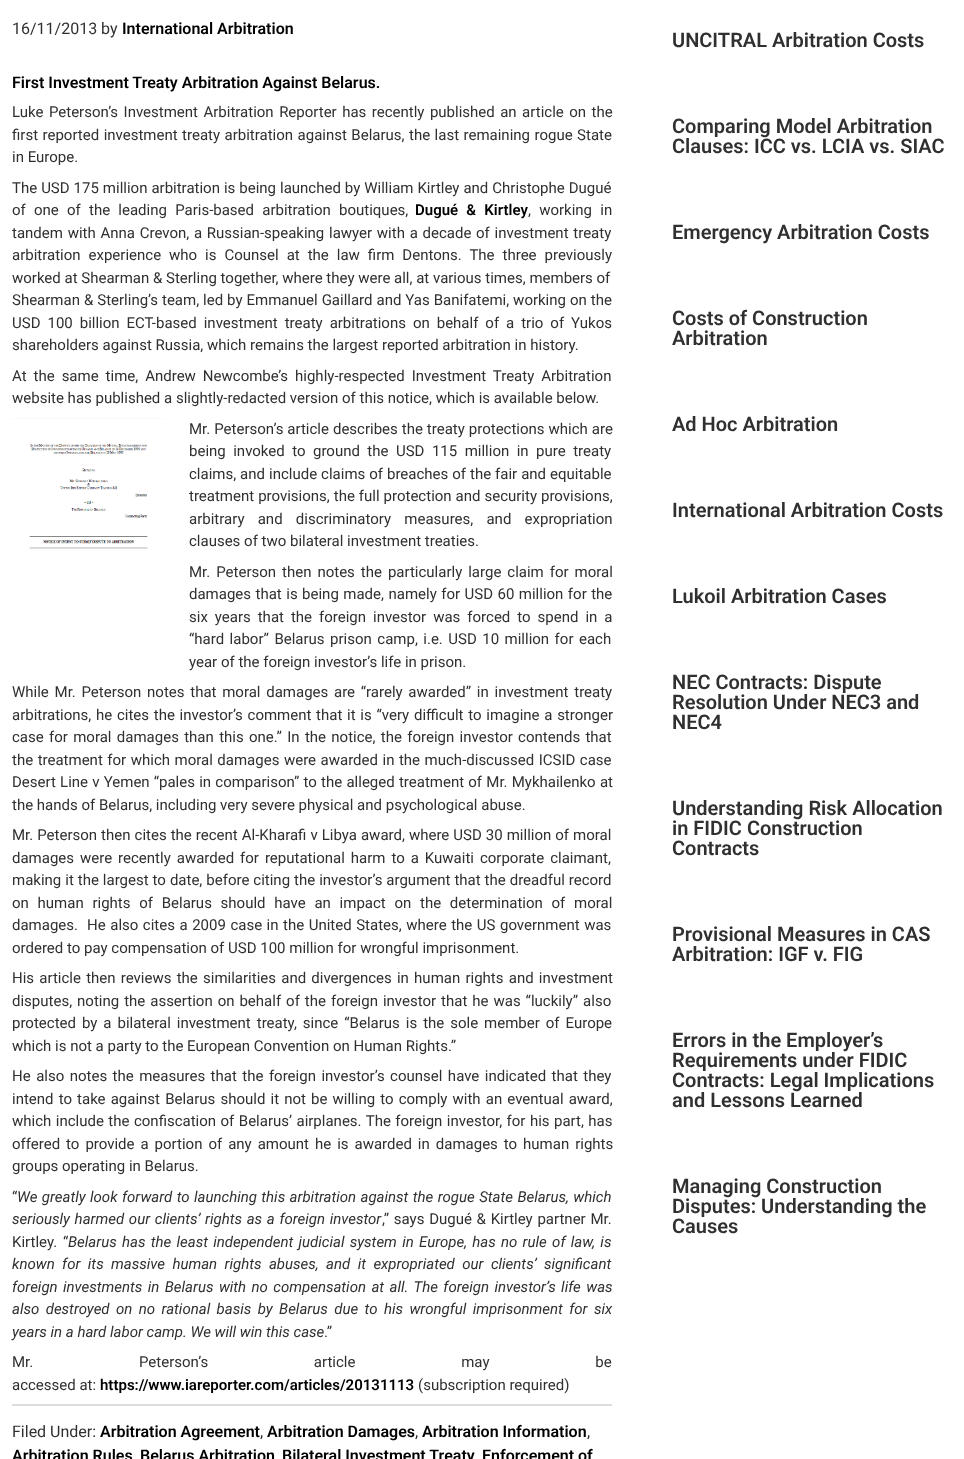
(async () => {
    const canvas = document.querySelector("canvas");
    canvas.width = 964;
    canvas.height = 1459;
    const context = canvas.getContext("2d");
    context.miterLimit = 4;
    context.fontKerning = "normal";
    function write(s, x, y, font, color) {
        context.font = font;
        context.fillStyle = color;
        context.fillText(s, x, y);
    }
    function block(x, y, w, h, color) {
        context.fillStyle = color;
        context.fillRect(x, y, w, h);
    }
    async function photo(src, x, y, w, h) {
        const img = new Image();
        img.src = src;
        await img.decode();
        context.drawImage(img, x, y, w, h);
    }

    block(0, 0, 964, 1459, "rgb(255, 255, 255)");
    write("16/11/2013 by", 12, 34, "16px Roboto", "rgb(48, 48, 48)");
    write("International Arbitration", 122, 34, "600 16px Roboto", "rgb(0, 0, 0)");
    write("First Investment Treaty Arbitration Against Belarus.", 12, 88, "600 16px Roboto", "rgb(0, 0, 0)");
    context.wordSpacing = "1.75px";
    write("Luke Peterson’s Investment Arbitration Reporter has recently published an article on the", 12, 117, "15px Roboto", "rgb(48, 48, 48)");
    context.wordSpacing = "0.75px";
    write("first reported investment treaty arbitration against Belarus, the last remaining rogue State", 12, 140, "15px Roboto", "rgb(48, 48, 48)");
    context.wordSpacing = "0px";
    write("in Europe.", 12, 162, "15px Roboto", "rgb(48, 48, 48)");
    context.wordSpacing = "0.25px";
    write("The USD 175 million arbitration is being launched by William Kirtley and Christophe Dugué", 12, 193, "15px Roboto", "rgb(48, 48, 48)");
    context.wordSpacing = "4.5px";
    write("of one of the leading Paris-based arbitration boutiques,", 12, 215, "15px Roboto", "rgb(48, 48, 48)");
    write("Dugué & Kirtley", 415, 215, "600 15px Roboto", "rgb(0, 0, 0)");
    write(", working in", 528, 215, "15px Roboto", "rgb(48, 48, 48)");
    context.wordSpacing = "1px";
    write("tandem with Anna Crevon, a Russian-speaking lawyer with a decade of investment treaty", 12, 238, "15px Roboto", "rgb(48, 48, 48)");
    context.wordSpacing = "4.25px";
    write("arbitration experience who is Counsel at the law firm Dentons. The three previously", 12, 260, "15px Roboto", "rgb(48, 48, 48)");
    context.wordSpacing = "0px";
    write("worked at Shearman & Sterling together, where they were all, at various times, members of", 12, 283, "15px Roboto", "rgb(48, 48, 48)");
    context.wordSpacing = "0.25px";
    write("Shearman & Sterling’s team, led by Emmanuel Gaillard and Yas Banifatemi, working on the", 12, 305, "15px Roboto", "rgb(48, 48, 48)");
    context.wordSpacing = "3.25px";
    write("USD 100 billion ECT-based investment treaty arbitrations on behalf of a trio of Yukos", 12, 328, "15px Roboto", "rgb(48, 48, 48)");
    context.wordSpacing = "0px";
    write("shareholders against Russia, which remains the largest reported arbitration in history.", 12, 350, "15px Roboto", "rgb(48, 48, 48)");
    context.wordSpacing = "3.25px";
    write("At the same time, Andrew Newcombe’s highly-respected Investment Treaty Arbitration", 12, 381, "15px Roboto", "rgb(48, 48, 48)");
    context.wordSpacing = "0px";
    write("website has published a slightly-redacted version of this notice, which is available below.", 12, 403, "15px Roboto", "rgb(48, 48, 48)");
    await photo("media/1.png", 12, 418, 153, 131);
    context.wordSpacing = "0.25px";
    write("Mr. Peterson’s article describes the treaty protections which are", 189, 434, "15px Roboto", "rgb(48, 48, 48)");
    context.wordSpacing = "3.75px";
    write("being invoked to ground the USD 115 million in pure treaty", 189, 456, "15px Roboto", "rgb(48, 48, 48)");
    context.wordSpacing = "0.25px";
    write("claims, and include claims of breaches of the fair and equitable", 189, 479, "15px Roboto", "rgb(48, 48, 48)");
    write("treatment provisions, the full protection and security provisions,", 189, 501, "15px Roboto", "rgb(48, 48, 48)");
    context.wordSpacing = "9.5px";
    write("arbitrary and discriminatory measures, and expropriation", 189, 524, "15px Roboto", "rgb(48, 48, 48)");
    context.wordSpacing = "0px";
    write("clauses of two bilateral investment treaties.", 189, 546, "15px Roboto", "rgb(48, 48, 48)");
    context.wordSpacing = "2.25px";
    write("Mr. Peterson then notes the particularly large claim for moral", 189, 577, "15px Roboto", "rgb(48, 48, 48)");
    context.wordSpacing = "0.75px";
    write("damages that is being made, namely for USD 60 million for the", 189, 599, "15px Roboto", "rgb(48, 48, 48)");
    context.wordSpacing = "3.25px";
    write("six years that the foreign investor was forced to spend in a", 189, 622, "15px Roboto", "rgb(48, 48, 48)");
    context.wordSpacing = "1.75px";
    write("“hard labor” Belarus prison camp, i.e. USD 10 million for each", 189, 644, "15px Roboto", "rgb(48, 48, 48)");
    context.wordSpacing = "0px";
    write("year of the foreign investor’s life in prison.", 189, 667, "15px Roboto", "rgb(48, 48, 48)");
    context.wordSpacing = "2px";
    write("While Mr. Peterson notes that moral damages are “rarely awarded” in investment treaty", 12, 697, "15px Roboto", "rgb(48, 48, 48)");
    context.wordSpacing = "1px";
    write("arbitrations, he cites the investor’s comment that it is “very difficult to imagine a stronger", 12, 720, "15px Roboto", "rgb(48, 48, 48)");
    context.wordSpacing = "1.6px";
    write("case for moral damages than this one.” In the notice, the foreign investor contends that", 12, 742, "15px Roboto", "rgb(48, 48, 48)");
    context.wordSpacing = "0.8px";
    write("the treatment for which moral damages were awarded in the much-discussed ICSID case", 12, 765, "15px Roboto", "rgb(48, 48, 48)");
    context.wordSpacing = "0.5px";
    write("Desert Line v Yemen “pales in comparison” to the alleged treatment of Mr. Mykhailenko at", 12, 787, "15px Roboto", "rgb(48, 48, 48)");
    context.wordSpacing = "0px";
    write("the hands of Belarus, including very severe physical and psychological abuse.", 12, 810, "15px Roboto", "rgb(48, 48, 48)");
    context.wordSpacing = "0.3px";
    write("Mr. Peterson then cites the recent Al-Kharafi v Libya award, where USD 30 million of moral", 12, 840, "15px Roboto", "rgb(48, 48, 48)");
    context.wordSpacing = "2.25px";
    write("damages were recently awarded for reputational harm to a Kuwaiti corporate claimant,", 12, 863, "15px Roboto", "rgb(48, 48, 48)");
    context.wordSpacing = "0.25px";
    write("making it the largest to date, before citing the investor’s argument that the dreadful record", 12, 885, "15px Roboto", "rgb(48, 48, 48)");
    context.wordSpacing = "5px";
    write("on human rights of Belarus should have an impact on the determination of moral", 12, 908, "15px Roboto", "rgb(48, 48, 48)");
    context.wordSpacing = "0.8px";
    write("damages.  He also cites a 2009 case in the United States, where the US government was", 12, 930, "15px Roboto", "rgb(48, 48, 48)");
    context.wordSpacing = "0px";
    write("ordered to pay compensation of USD 100 million for wrongful imprisonment.", 12, 953, "15px Roboto", "rgb(48, 48, 48)");
    context.wordSpacing = "1.5px";
    write("His article then reviews the similarities and divergences in human rights and investment", 12, 983, "15px Roboto", "rgb(48, 48, 48)");
    context.wordSpacing = "1.25px";
    write("disputes, noting the assertion on behalf of the foreign investor that he was “luckily” also", 12, 1006, "15px Roboto", "rgb(48, 48, 48)");
    context.wordSpacing = "2.25px";
    write("protected by a bilateral investment treaty, since “Belarus is the sole member of Europe", 12, 1028, "15px Roboto", "rgb(48, 48, 48)");
    context.wordSpacing = "0px";
    write("which is not a party to the European Convention on Human Rights.”", 12, 1051, "15px Roboto", "rgb(48, 48, 48)");
    context.wordSpacing = "1.75px";
    write("He also notes the measures that the foreign investor’s counsel have indicated that they", 12, 1081, "15px Roboto", "rgb(48, 48, 48)");
    context.wordSpacing = "1.4px";
    write("intend to take against Belarus should it not be willing to comply with an eventual award,", 12, 1104, "15px Roboto", "rgb(48, 48, 48)");
    context.wordSpacing = "0.75px";
    write("which include the confiscation of Belarus’ airplanes. The foreign investor, for his part, has", 12, 1126, "15px Roboto", "rgb(48, 48, 48)");
    context.wordSpacing = "2.25px";
    write("offered to provide a portion of any amount he is awarded in damages to human rights", 12, 1149, "15px Roboto", "rgb(48, 48, 48)");
    context.wordSpacing = "0px";
    write("groups operating in Belarus.", 12, 1171, "15px Roboto", "rgb(48, 48, 48)");
    write("“", 12, 1202, "15px Roboto", "rgb(48, 48, 48)");
    context.wordSpacing = "0.75px";
    write("We greatly look forward to launching this arbitration against the rogue State Belarus, which", 17, 1202, "italic 15px Roboto", "rgb(48, 48, 48)");
    context.wordSpacing = "1px";
    write("seriously harmed our clients’ rights as a foreign investor", 12, 1224, "italic 15px Roboto", "rgb(48, 48, 48)");
    write(",” says Dugué & Kirtley partner Mr.", 382, 1224, "15px Roboto", "rgb(48, 48, 48)");
    context.wordSpacing = "2px";
    write("Kirtley. “", 12, 1247, "15px Roboto", "rgb(48, 48, 48)");
    context.wordSpacing = "1.6px";
    write("Belarus has the least independent judicial system in Europe, has no rule of law, is", 68, 1247, "italic 15px Roboto", "rgb(48, 48, 48)");
    context.wordSpacing = "3.75px";
    write("known for its massive human rights abuses, and it expropriated our clients’ significant", 12, 1269, "italic 15px Roboto", "rgb(48, 48, 48)");
    context.wordSpacing = "1.75px";
    write("foreign investments in Belarus with no compensation at all. The foreign investor’s life was", 12, 1292, "italic 15px Roboto", "rgb(48, 48, 48)");
    context.wordSpacing = "2.75px";
    write("also destroyed on no rational basis by Belarus due to his wrongful imprisonment for six", 12, 1314, "italic 15px Roboto", "rgb(48, 48, 48)");
    context.wordSpacing = "0px";
    write("years in a hard labor camp. We will win this case", 12, 1337, "italic 15px Roboto", "rgb(48, 48, 48)");
    write(".”", 324, 1337, "15px Roboto", "rgb(48, 48, 48)");
    context.wordSpacing = "102px";
    write("Mr. Peterson’s article may be", 12, 1367, "15px Roboto", "rgb(48, 48, 48)");
    context.wordSpacing = "0px";
    write("accessed at:", 12, 1390, "15px Roboto", "rgb(48, 48, 48)");
    write("https://www.iareporter.com/articles/20131113", 100, 1390, "600 15px Roboto", "rgb(0, 0, 0)");
    write("(subscription required)", 418, 1390, "15px Roboto", "rgb(48, 48, 48)");
    block(12, 1404, 600, 2, "rgb(220, 220, 220)");
    write("Filed Under:", 12, 1437, "16px Roboto", "rgb(48, 48, 48)");
    write("Arbitration Agreement", 100, 1437, "600 16px Roboto", "rgb(0, 0, 0)");
    write(",", 260, 1437, "16px Roboto", "rgb(48, 48, 48)");
    write("Arbitration Damages", 267, 1437, "600 16px Roboto", "rgb(0, 0, 0)");
    write(",", 415, 1437, "16px Roboto", "rgb(48, 48, 48)");
    write("Arbitration Information", 422, 1437, "600 16px Roboto", "rgb(0, 0, 0)");
    write(",", 587, 1437, "16px Roboto", "rgb(48, 48, 48)");
    write("Arbitration Rules", 12, 1461, "600 16px Roboto", "rgb(0, 0, 0)");
    write("Belarus Arbitration", 140, 1461, "600 16px Roboto", "rgb(0, 0, 0)");
    write("Bilateral Investment Treaty", 282, 1461, "600 16px Roboto", "rgb(0, 0, 0)");
    write("Enforcement of", 482, 1461, "600 16px Roboto", "rgb(0, 0, 0)");
    write("UNCITRAL Arbitration Costs", 672, 47, "600 20px Roboto", "rgb(48, 48, 48)");
    write("Comparing Model Arbitration", 672, 133, "600 20px Roboto", "rgb(48, 48, 48)");
    write("Clauses: ICC vs. LCIA vs. SIAC", 672, 153, "600 20px Roboto", "rgb(48, 48, 48)");
    write("Emergency Arbitration Costs", 672, 239, "600 20px Roboto", "rgb(48, 48, 48)");
    write("Costs of Construction", 672, 325, "600 20px Roboto", "rgb(48, 48, 48)");
    write("Arbitration", 672, 345, "600 20px Roboto", "rgb(48, 48, 48)");
    write("Ad Hoc Arbitration", 672, 431, "600 20px Roboto", "rgb(48, 48, 48)");
    write("International Arbitration Costs", 672, 517, "600 20px Roboto", "rgb(48, 48, 48)");
    write("Lukoil Arbitration Cases", 672, 603, "600 20px Roboto", "rgb(48, 48, 48)");
    write("NEC Contracts: Dispute", 672, 689, "600 20px Roboto", "rgb(48, 48, 48)");
    write("Resolution Under NEC3 and", 672, 709, "600 20px Roboto", "rgb(48, 48, 48)");
    write("NEC4", 672, 729, "600 20px Roboto", "rgb(48, 48, 48)");
    write("Understanding Risk Allocation", 672, 815, "600 20px Roboto", "rgb(48, 48, 48)");
    write("in FIDIC Construction", 672, 835, "600 20px Roboto", "rgb(48, 48, 48)");
    write("Contracts", 672, 855, "600 20px Roboto", "rgb(48, 48, 48)");
    write("Provisional Measures in CAS", 672, 941, "600 20px Roboto", "rgb(48, 48, 48)");
    write("Arbitration: IGF v. FIG", 672, 961, "600 20px Roboto", "rgb(48, 48, 48)");
    write("Errors in the Employer’s", 672, 1047, "600 20px Roboto", "rgb(48, 48, 48)");
    write("Requirements under FIDIC", 672, 1067, "600 20px Roboto", "rgb(48, 48, 48)");
    write("Contracts: Legal Implications", 672, 1087, "600 20px Roboto", "rgb(48, 48, 48)");
    write("and Lessons Learned", 672, 1107, "600 20px Roboto", "rgb(48, 48, 48)");
    write("Managing Construction", 672, 1193, "600 20px Roboto", "rgb(48, 48, 48)");
    write("Disputes: Understanding the", 672, 1213, "600 20px Roboto", "rgb(48, 48, 48)");
    write("Causes", 672, 1233, "600 20px Roboto", "rgb(48, 48, 48)");
})();
